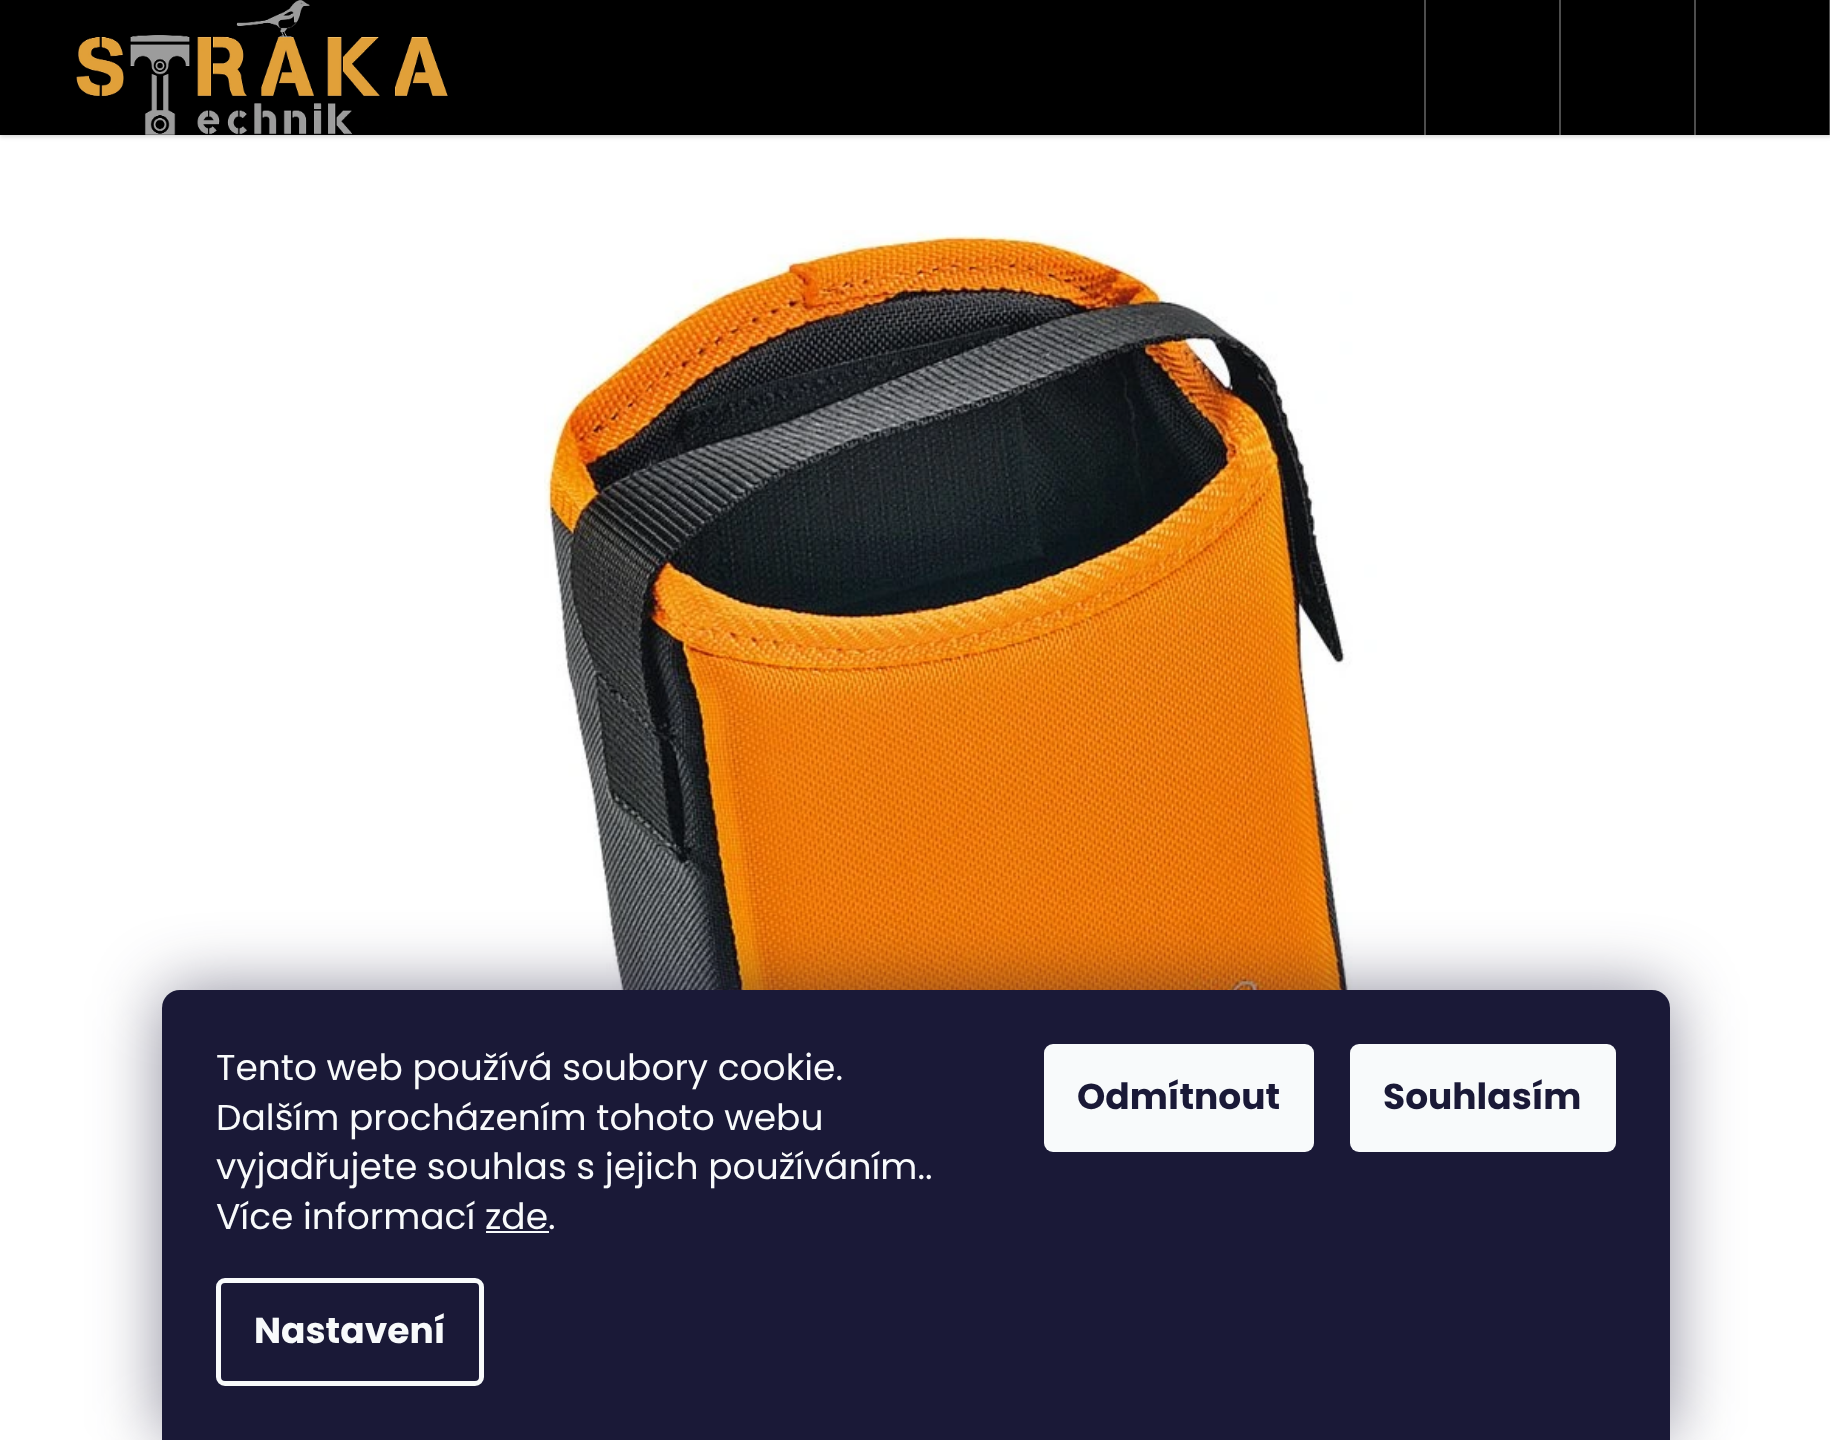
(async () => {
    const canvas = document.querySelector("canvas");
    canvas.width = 1830;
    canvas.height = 1440;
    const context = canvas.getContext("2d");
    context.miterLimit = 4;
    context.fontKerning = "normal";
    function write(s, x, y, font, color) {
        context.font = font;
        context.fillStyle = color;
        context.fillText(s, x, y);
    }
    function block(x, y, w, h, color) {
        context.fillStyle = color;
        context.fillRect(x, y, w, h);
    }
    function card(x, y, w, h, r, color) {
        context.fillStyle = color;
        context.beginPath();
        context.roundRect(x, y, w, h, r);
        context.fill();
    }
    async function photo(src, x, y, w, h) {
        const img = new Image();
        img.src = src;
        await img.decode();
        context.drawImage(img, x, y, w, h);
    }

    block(0, 0, 1830, 1440, "rgb(255, 255, 255)");
    context.fillStyle = "rgba(0, 0, 0, 0.16)";
    context.filter = "blur(2px)";
    context.beginPath();
    context.rect(0, 2, 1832, 135);
    context.fill();
    context.filter = "none";
    block(0, 0, 1829, 135, "rgb(0, 0, 0)");
    await photo("media/1.png", 76, 0, 372, 135);
    block(1829, 0, 1, 135, "rgb(77, 77, 77)");
    block(1424, 0, 2, 135, "rgb(77, 77, 77)");
    block(1559, 0, 2, 135, "rgb(77, 77, 77)");
    block(1694, 0, 2, 135, "rgb(77, 77, 77)");
    await photo("media/2.png", 544, 230, 839, 760);
    context.fillStyle = "rgba(27, 25, 57, 0.5)";
    context.filter = "blur(34px)";
    context.beginPath();
    context.roundRect(162, 990, 1508, 450, 18);
    context.fill();
    context.filter = "none";
    context.fillStyle = "rgb(26, 25, 55)";
    context.beginPath();
    context.roundRect(162, 990, 1508, 450, [18, 18, 0, 0]);
    context.fill();
    write("Tento web používá soubory cookie.", 216, 1080, "36px Poppins", "rgb(248, 250, 251)");
    write("Dalším procházením tohoto webu", 216, 1130, "36px Poppins", "rgb(248, 250, 251)");
    write("vyjadřujete souhlas s jejich používáním..", 216, 1179, "36px Poppins", "rgb(248, 250, 251)");
    write("Více informací zde.", 216, 1229, "36px Poppins", "rgb(248, 250, 251)");
    block(486, 1231, 63, 2, "rgb(248, 250, 251)");
    context.beginPath();
    context.roundRect(218.5, 1280.5, 263, 103, 6.5);
    context.strokeStyle = "rgb(248, 250, 251)";
    context.lineWidth = 5;
    context.stroke();
    write("Nastavení", 254, 1343, "bold 36px Poppins", "rgb(248, 250, 251)");
    card(1044, 1044, 270, 108, 9, "rgb(248, 250, 251)");
    write("Odmítnout", 1077, 1109, "bold 36px Poppins", "rgb(26, 25, 55)");
    card(1350, 1044, 266, 108, 9, "rgb(248, 250, 251)");
    write("Souhlasím", 1383, 1109, "bold 36px Poppins", "rgb(26, 25, 55)");
})();
